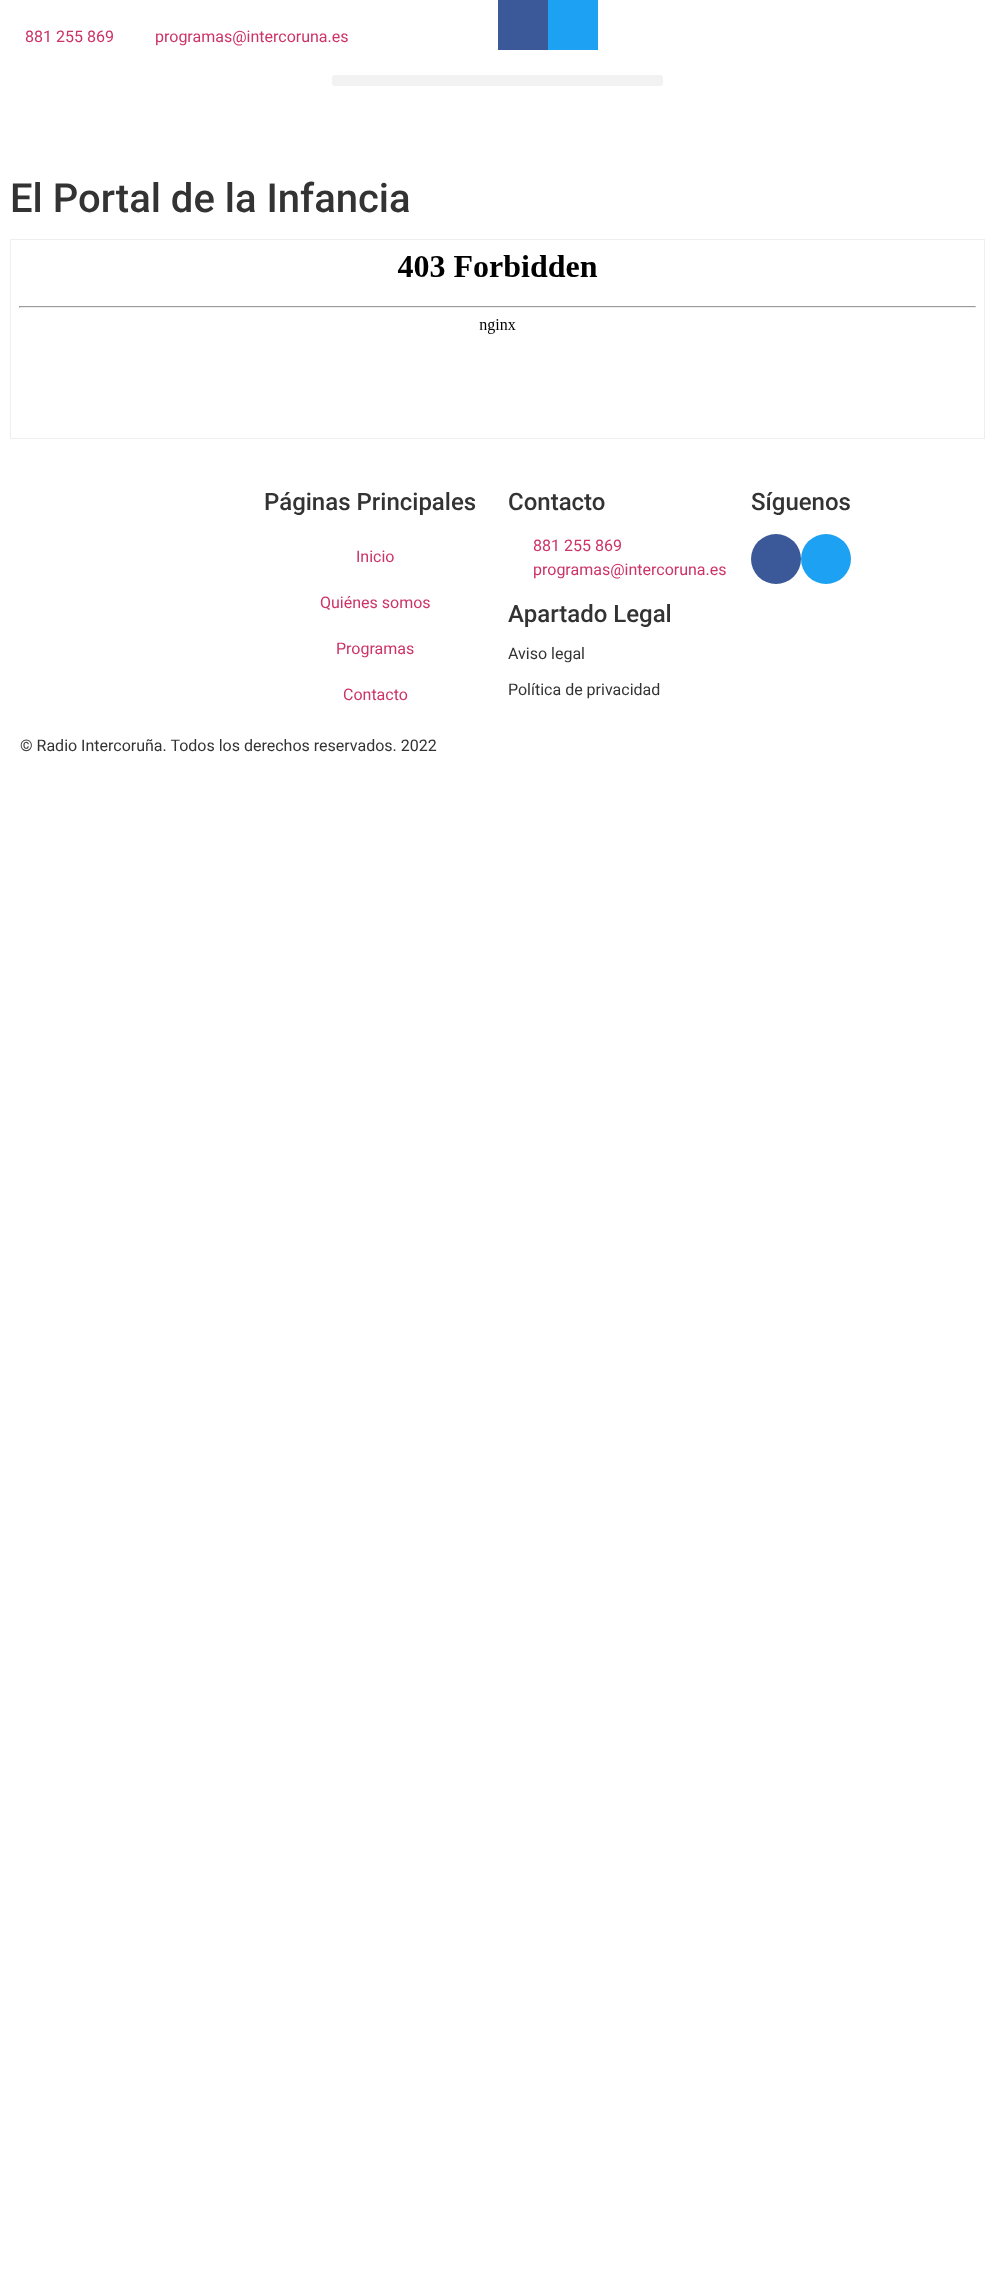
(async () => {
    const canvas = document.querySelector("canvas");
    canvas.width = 995;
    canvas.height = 2278;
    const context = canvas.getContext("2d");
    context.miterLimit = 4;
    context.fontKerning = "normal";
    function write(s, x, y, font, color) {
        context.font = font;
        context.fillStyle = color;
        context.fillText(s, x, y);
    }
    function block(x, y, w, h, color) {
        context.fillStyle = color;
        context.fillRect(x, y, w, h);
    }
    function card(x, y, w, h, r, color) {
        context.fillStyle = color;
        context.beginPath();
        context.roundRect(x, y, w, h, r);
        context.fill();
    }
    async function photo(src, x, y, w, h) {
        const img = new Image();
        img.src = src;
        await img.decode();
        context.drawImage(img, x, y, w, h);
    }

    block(0, 0, 995, 2278, "rgb(255, 255, 255)");
    write("881 255 869", 25, 42, "16px Roboto", "rgb(204, 51, 102)");
    write("programas@intercoruna.es", 155, 42, "16px Roboto", "rgb(204, 51, 102)");
    block(498, 0, 50, 50, "rgb(59, 89, 152)");
    block(548, 0, 50, 50, "rgb(29, 161, 242)");
    card(332, 75, 331, 11, 3, "rgb(242, 242, 242)");
    write("El Portal de la Infancia", 10, 212, "500 40px Roboto", "rgb(51, 51, 51)");
    context.strokeStyle = "rgb(238, 238, 238)";
    context.strokeRect(10.5, 239.5, 974, 199);
    await photo("media/1.png", 19, 255, 957, 79);
    write("Páginas Principales", 264, 510, "500 24px Roboto", "rgb(51, 51, 51)");
    write("Inicio", 356, 562, "16px Roboto", "rgb(204, 51, 102)");
    write("Quiénes somos", 320, 608, "16px Roboto", "rgb(204, 51, 102)");
    write("Programas", 336, 654, "16px Roboto", "rgb(204, 51, 102)");
    write("Contacto", 343, 700, "16px Roboto", "rgb(204, 51, 102)");
    write("Contacto", 508, 510, "500 24px Roboto", "rgb(51, 51, 51)");
    write("881 255 869", 533, 551, "16px Roboto", "rgb(204, 51, 102)");
    write("programas@intercoruna.es", 533, 575, "16px Roboto", "rgb(204, 51, 102)");
    write("Apartado Legal", 508, 622, "500 24px Roboto", "rgb(51, 51, 51)");
    write("Aviso legal", 508, 659, "16px Roboto", "rgb(51, 51, 51)");
    write("Política de privacidad", 508, 695, "16px Roboto", "rgb(51, 51, 51)");
    write("Síguenos", 751, 510, "500 24px Roboto", "rgb(51, 51, 51)");
    context.fillStyle = "rgb(59, 89, 152)";
    context.beginPath();
    context.arc(776, 559, 25, 0, Math.PI * 2);
    context.fill();
    context.fillStyle = "rgb(29, 161, 242)";
    context.beginPath();
    context.arc(826, 559, 25, 0, Math.PI * 2);
    context.fill();
    write("© Radio Intercoruña. Todos los derechos reservados. 2022", 20, 751, "16px Roboto", "rgb(51, 51, 51)");
})();
